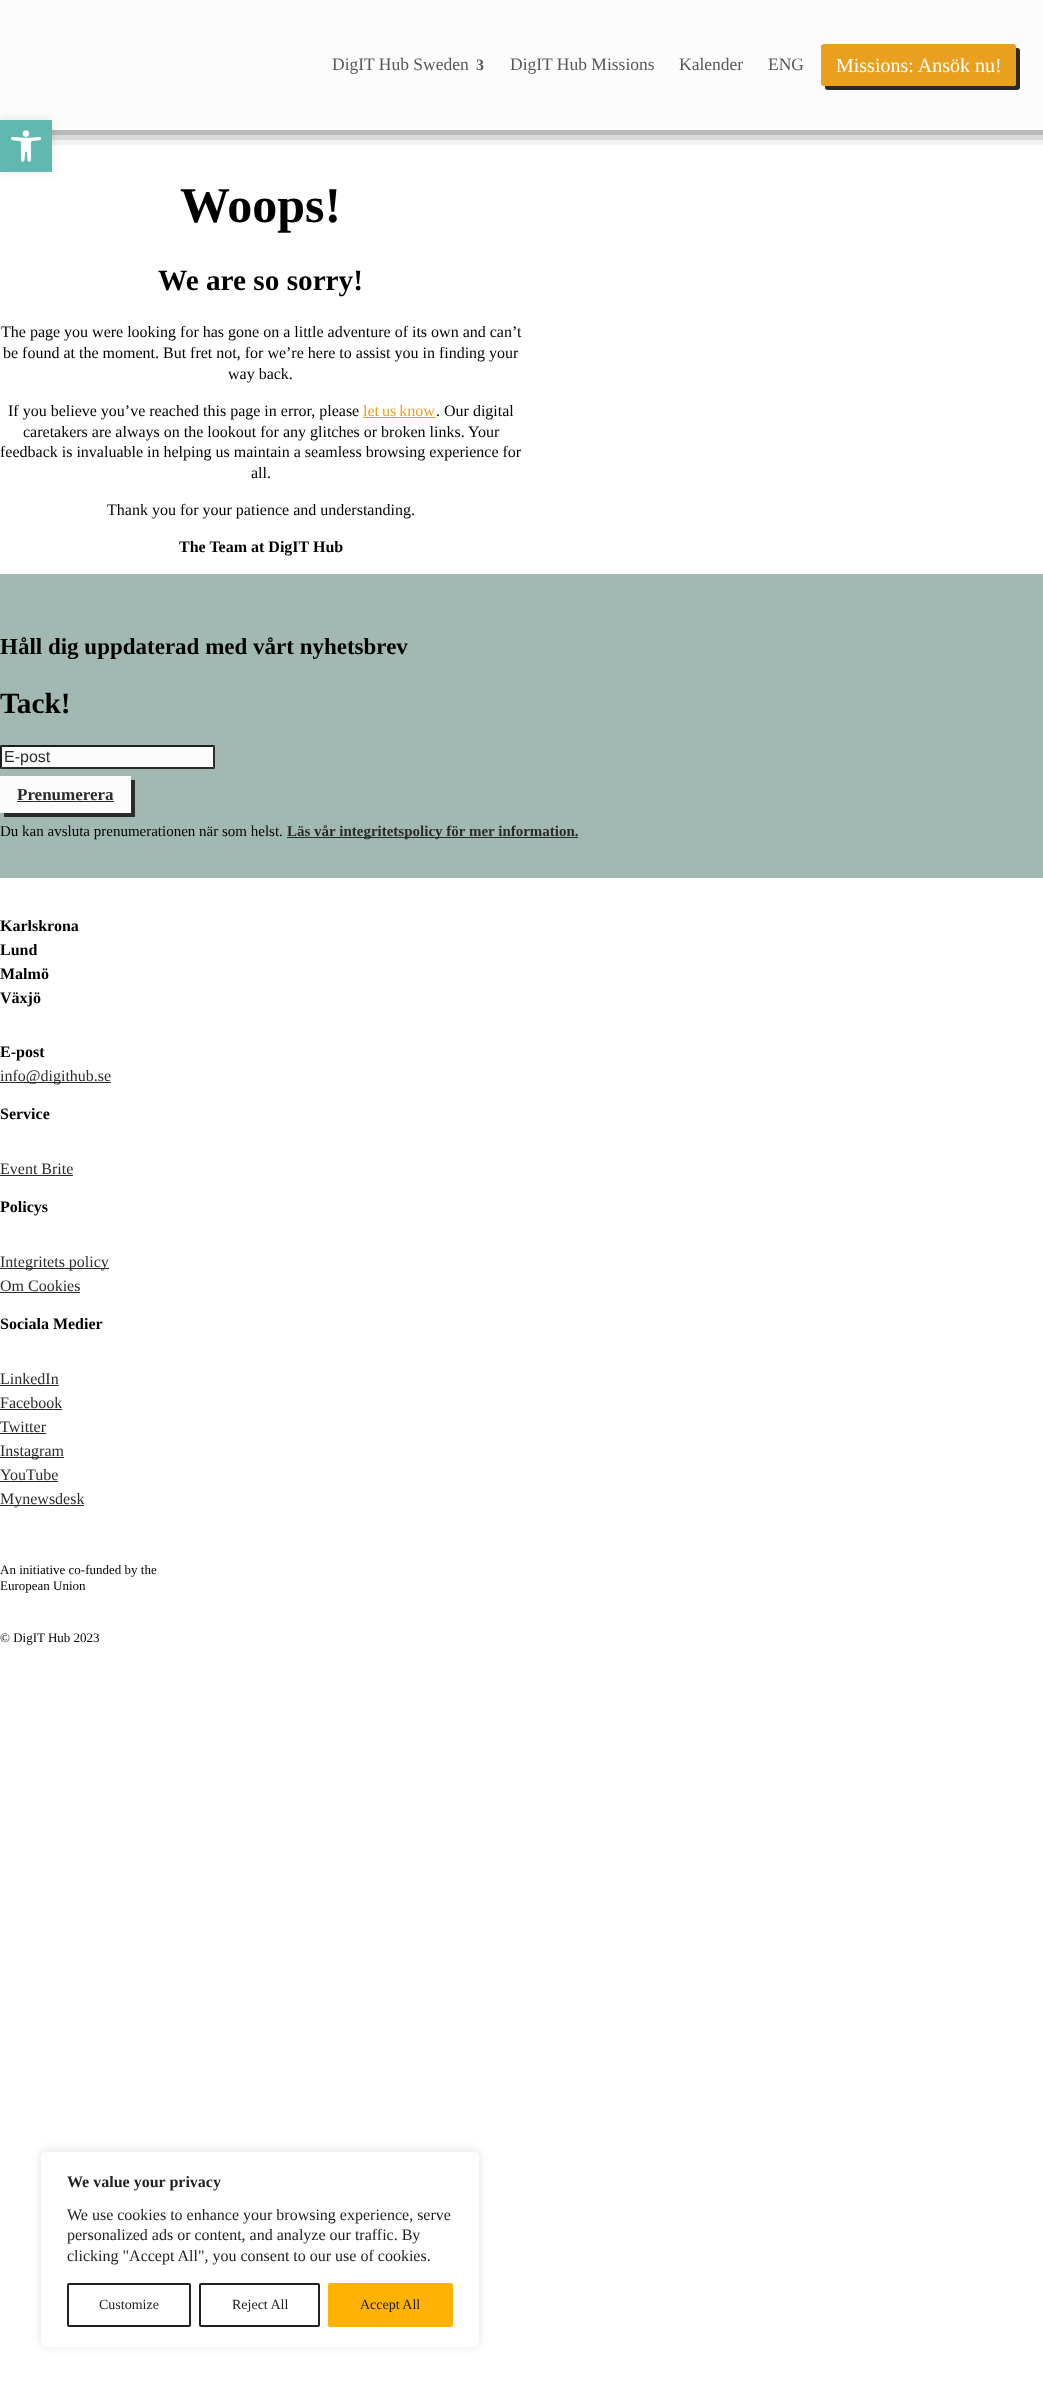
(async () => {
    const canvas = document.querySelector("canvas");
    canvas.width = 1043;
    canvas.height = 2388;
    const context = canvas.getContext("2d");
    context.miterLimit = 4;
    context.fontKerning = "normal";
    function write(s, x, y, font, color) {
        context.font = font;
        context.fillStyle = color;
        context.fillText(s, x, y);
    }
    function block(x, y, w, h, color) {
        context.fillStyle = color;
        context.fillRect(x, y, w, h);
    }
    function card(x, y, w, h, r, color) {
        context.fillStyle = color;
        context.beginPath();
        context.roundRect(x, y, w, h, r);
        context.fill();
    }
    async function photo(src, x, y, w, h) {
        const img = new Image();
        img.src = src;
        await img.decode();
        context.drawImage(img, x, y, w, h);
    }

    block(0, 0, 1043, 2388, "rgb(255, 255, 255)");
    block(52, 140, 991, 5, "rgb(242, 242, 242)");
    block(52, 135, 991, 5, "rgb(218, 218, 218)");
    block(52, 130, 991, 5, "rgb(185, 185, 185)");
    block(0, 0, 1043, 130, "rgb(252, 252, 252)");
    write("DigIT Hub Sweden", 332, 70, "17.5px Liberation Serif", "rgb(87, 87, 87)");
    write("3", 476, 70, "bold 16px Liberation Serif", "rgb(87, 87, 87)");
    write("DigIT Hub Missions", 510, 70, "17.5px Liberation Serif", "rgb(87, 87, 87)");
    write("Kalender", 679, 70, "17.5px Liberation Serif", "rgb(87, 87, 87)");
    write("ENG", 768, 70, "17.5px Liberation Serif", "rgb(87, 87, 87)");
    context.fillStyle = "rgb(43, 43, 43)";
    context.beginPath();
    context.moveTo(825, 86);
    context.lineTo(825, 87);
    context.bezierCurveTo(825, 89, 826, 90, 828, 90);
    context.lineTo(1017, 90);
    context.bezierCurveTo(1019, 90, 1020, 89, 1020, 87);
    context.lineTo(1020, 51);
    context.bezierCurveTo(1020, 49, 1019, 48, 1017, 48);
    context.lineTo(1016, 48);
    context.lineTo(1016, 83);
    context.bezierCurveTo(1016, 85, 1015, 86, 1013, 86);
    context.closePath();
    context.fill();
    card(821, 44, 195, 42, 3, "rgb(234, 160, 31)");
    write("Missions: Ansök nu!", 836, 72, "20px Liberation Serif", "rgb(252, 252, 252)");
    write("Woops!", 180, 222, "bold 50px Liberation Serif", "rgb(0, 0, 0)");
    write("We are so sorry!", 158, 290, "bold 29.25px Liberation Serif", "rgb(0, 0, 0)");
    write("The page you were looking for has gone on a little adventure of its own and can’t", 1, 337, "16px Liberation Serif", "rgb(0, 0, 0)");
    write("be found at the moment. But fret not, for we’re here to assist you in finding your", 3, 358, "16px Liberation Serif", "rgb(0, 0, 0)");
    write("way back.", 228, 379, "16px Liberation Serif", "rgb(0, 0, 0)");
    write("If you believe you’ve reached this page in error, please", 8, 416, "16px Liberation Serif", "rgb(0, 0, 0)");
    context.wordSpacing = "-1px";
    write("let us know", 363, 416, "16px Liberation Serif", "rgb(234, 160, 31)");
    block(363, 417, 73, 1, "rgb(234, 160, 31)");
    context.wordSpacing = "0px";
    write(". Our digital", 436, 416, "16px Liberation Serif", "rgb(0, 0, 0)");
    write("caretakers are always on the lookout for any glitches or broken links. Your", 23, 437, "16px Liberation Serif", "rgb(0, 0, 0)");
    write("feedback is invaluable in helping us maintain a seamless browsing experience for", 0, 457, "16px Liberation Serif", "rgb(0, 0, 0)");
    write("all.", 251, 478, "16px Liberation Serif", "rgb(0, 0, 0)");
    write("Thank you for your patience and understanding.", 107, 515, "16px Liberation Serif", "rgb(0, 0, 0)");
    write("The Team at DigIT Hub", 179, 552, "bold 16px Liberation Serif", "rgb(0, 0, 0)");
    block(0, 574, 1043, 304, "rgb(162, 185, 179)");
    write("Håll dig uppdaterad med vårt nyhetsbrev", 0, 654, "bold 23px Liberation Serif", "rgb(0, 0, 0)");
    write("Tack!", 0, 713, "bold 29.25px Liberation Serif", "rgb(0, 0, 0)");
    block(0, 745, 215, 24, "rgb(252, 252, 252)");
    context.fillStyle = "rgb(29, 29, 29)";
    context.beginPath();
    context.moveTo(0, 745);
    context.lineTo(215, 745);
    context.lineTo(213, 747);
    context.lineTo(2, 747);
    context.closePath();
    context.fill();
    context.fillStyle = "rgb(43, 43, 43)";
    context.beginPath();
    context.moveTo(215, 745);
    context.lineTo(215, 769);
    context.lineTo(213, 767);
    context.lineTo(213, 747);
    context.closePath();
    context.fill();
    context.beginPath();
    context.moveTo(215, 769);
    context.lineTo(0, 769);
    context.lineTo(2, 767);
    context.lineTo(213, 767);
    context.closePath();
    context.fill();
    context.fillStyle = "rgb(29, 29, 29)";
    context.beginPath();
    context.moveTo(0, 769);
    context.lineTo(0, 745);
    context.lineTo(2, 747);
    context.lineTo(2, 767);
    context.closePath();
    context.fill();
    write("E-post", 4, 762, "16px Liberation Sans", "rgb(43, 43, 43)");
    context.beginPath();
    context.moveTo(4, 813);
    context.lineTo(4, 817);
    context.lineTo(21, 817);
    context.lineTo(21, 780);
    context.lineTo(17, 780);
    context.lineTo(17, 813);
    context.closePath();
    context.fill();
    context.beginPath();
    context.moveTo(21, 813);
    context.lineTo(21, 817);
    context.lineTo(135, 817);
    context.lineTo(135, 780);
    context.lineTo(131, 780);
    context.lineTo(131, 813);
    context.closePath();
    context.fill();
    block(17, 776, 114, 37, "rgb(252, 252, 252)");
    write("Prenumerera", 17, 800, "bold 17px Liberation Serif", "rgb(43, 43, 43)");
    block(0, 776, 17, 37, "rgb(252, 252, 252)");
    block(17, 801, 97, 1, "rgb(43, 43, 43)");
    write("Du kan avsluta prenumerationen när som helst.", 0, 836, "15px Liberation Serif", "rgb(0, 0, 0)");
    block(287, 837, 291, 1, "rgb(43, 43, 43)");
    write("Läs vår integritetspolicy för mer information.", 287, 836, "bold 15px Liberation Serif", "rgb(43, 43, 43)");
    write("Karlskrona", 0, 931, "bold 16px Liberation Serif", "rgb(0, 0, 0)");
    write("Lund", 0, 955, "bold 16px Liberation Serif", "rgb(0, 0, 0)");
    write("Malmö", 0, 979, "bold 16px Liberation Serif", "rgb(0, 0, 0)");
    write("Växjö", 0, 1003, "bold 16px Liberation Serif", "rgb(0, 0, 0)");
    write("E-post", 0, 1057, "bold 16px Liberation Serif", "rgb(0, 0, 0)");
    block(0, 1082, 111, 1, "rgb(43, 43, 43)");
    write("info@digithub.se", 0, 1081, "16px Liberation Serif", "rgb(43, 43, 43)");
    write("Service", 0, 1119, "bold 16px Liberation Serif", "rgb(0, 0, 0)");
    write("Event Brite", 0, 1174, "16px Liberation Serif", "rgb(43, 43, 43)");
    block(0, 1175, 73, 1, "rgb(43, 43, 43)");
    write("Policys", 0, 1212, "bold 16px Liberation Serif", "rgb(0, 0, 0)");
    block(0, 1268, 109, 1, "rgb(43, 43, 43)");
    write("Integritets policy", 0, 1267, "16px Liberation Serif", "rgb(43, 43, 43)");
    write("Om Cookies", 0, 1291, "16px Liberation Serif", "rgb(43, 43, 43)");
    block(0, 1292, 80, 1, "rgb(43, 43, 43)");
    write("Sociala Medier", 0, 1329, "bold 16px Liberation Serif", "rgb(0, 0, 0)");
    write("LinkedIn", 0, 1384, "16px Liberation Serif", "rgb(43, 43, 43)");
    block(0, 1385, 59, 1, "rgb(43, 43, 43)");
    write("Facebook", 0, 1408, "16px Liberation Serif", "rgb(43, 43, 43)");
    block(0, 1409, 62, 1, "rgb(43, 43, 43)");
    write("Twitter", 0, 1432, "16px Liberation Serif", "rgb(43, 43, 43)");
    block(0, 1433, 46, 1, "rgb(43, 43, 43)");
    block(0, 1457, 64, 1, "rgb(43, 43, 43)");
    write("Instagram", 0, 1456, "16px Liberation Serif", "rgb(43, 43, 43)");
    write("YouTube", 0, 1480, "16px Liberation Serif", "rgb(43, 43, 43)");
    block(0, 1481, 58, 1, "rgb(43, 43, 43)");
    block(0, 1505, 84, 1, "rgb(43, 43, 43)");
    write("Mynewsdesk", 0, 1504, "16px Liberation Serif", "rgb(43, 43, 43)");
    write("An initiative co-funded by the", 0, 1574, "13px Liberation Serif", "rgb(0, 0, 0)");
    write("European Union", 0, 1590, "13px Liberation Serif", "rgb(0, 0, 0)");
    write("© DigIT Hub 2023", 0, 1642, "13px Liberation Serif", "rgb(0, 0, 0)");
    context.fillStyle = "rgba(0, 0, 0, 0.1)";
    context.filter = "blur(5px)";
    context.beginPath();
    context.rect(0, 120, 52, 52);
    context.fill();
    context.filter = "none";
    block(0, 120, 52, 52, "rgb(97, 184, 176)");
    await photo("media/1.png", 11, 130, 30, 32);
    context.fillStyle = "rgba(172, 171, 171, 0.3)";
    context.filter = "blur(5px)";
    context.beginPath();
    context.roundRect(40, 2150, 440, 197, 6);
    context.fill();
    context.filter = "none";
    context.fillStyle = "rgb(255, 255, 255)";
    context.beginPath();
    context.roundRect(40.5, 2151.5, 439, 196, 5.5);
    context.fill();
    context.strokeStyle = "rgb(244, 244, 244)";
    context.stroke();
    write("We value your privacy", 67, 2187, "bold 16px Liberation Serif", "rgb(33, 33, 33)");
    write("We use cookies to enhance your browsing experience, serve", 67, 2220, "16px Liberation Serif", "rgb(33, 33, 33)");
    write("personalized ads or content, and analyze our traffic. By", 67, 2240, "16px Liberation Serif", "rgb(33, 33, 33)");
    write("clicking \"Accept All\", you consent to our use of cookies.", 67, 2261, "16px Liberation Serif", "rgb(33, 33, 33)");
    context.beginPath();
    context.roundRect(68, 2284, 122, 42, 1);
    context.strokeStyle = "rgb(33, 33, 33)";
    context.lineWidth = 2;
    context.stroke();
    write("Customize", 99, 2309, "14px Liberation Serif", "rgb(33, 33, 33)");
    context.beginPath();
    context.roundRect(200, 2284, 119, 42, 1);
    context.stroke();
    write("Reject All", 232, 2309, "14px Liberation Serif", "rgb(33, 33, 33)");
    context.fillStyle = "rgb(255, 179, 0)";
    context.beginPath();
    context.roundRect(329, 2284, 123, 42, 1);
    context.fill();
    context.strokeStyle = "rgb(255, 179, 0)";
    context.stroke();
    write("Accept All", 360, 2309, "14px Liberation Serif", "rgb(33, 33, 33)");
})();
